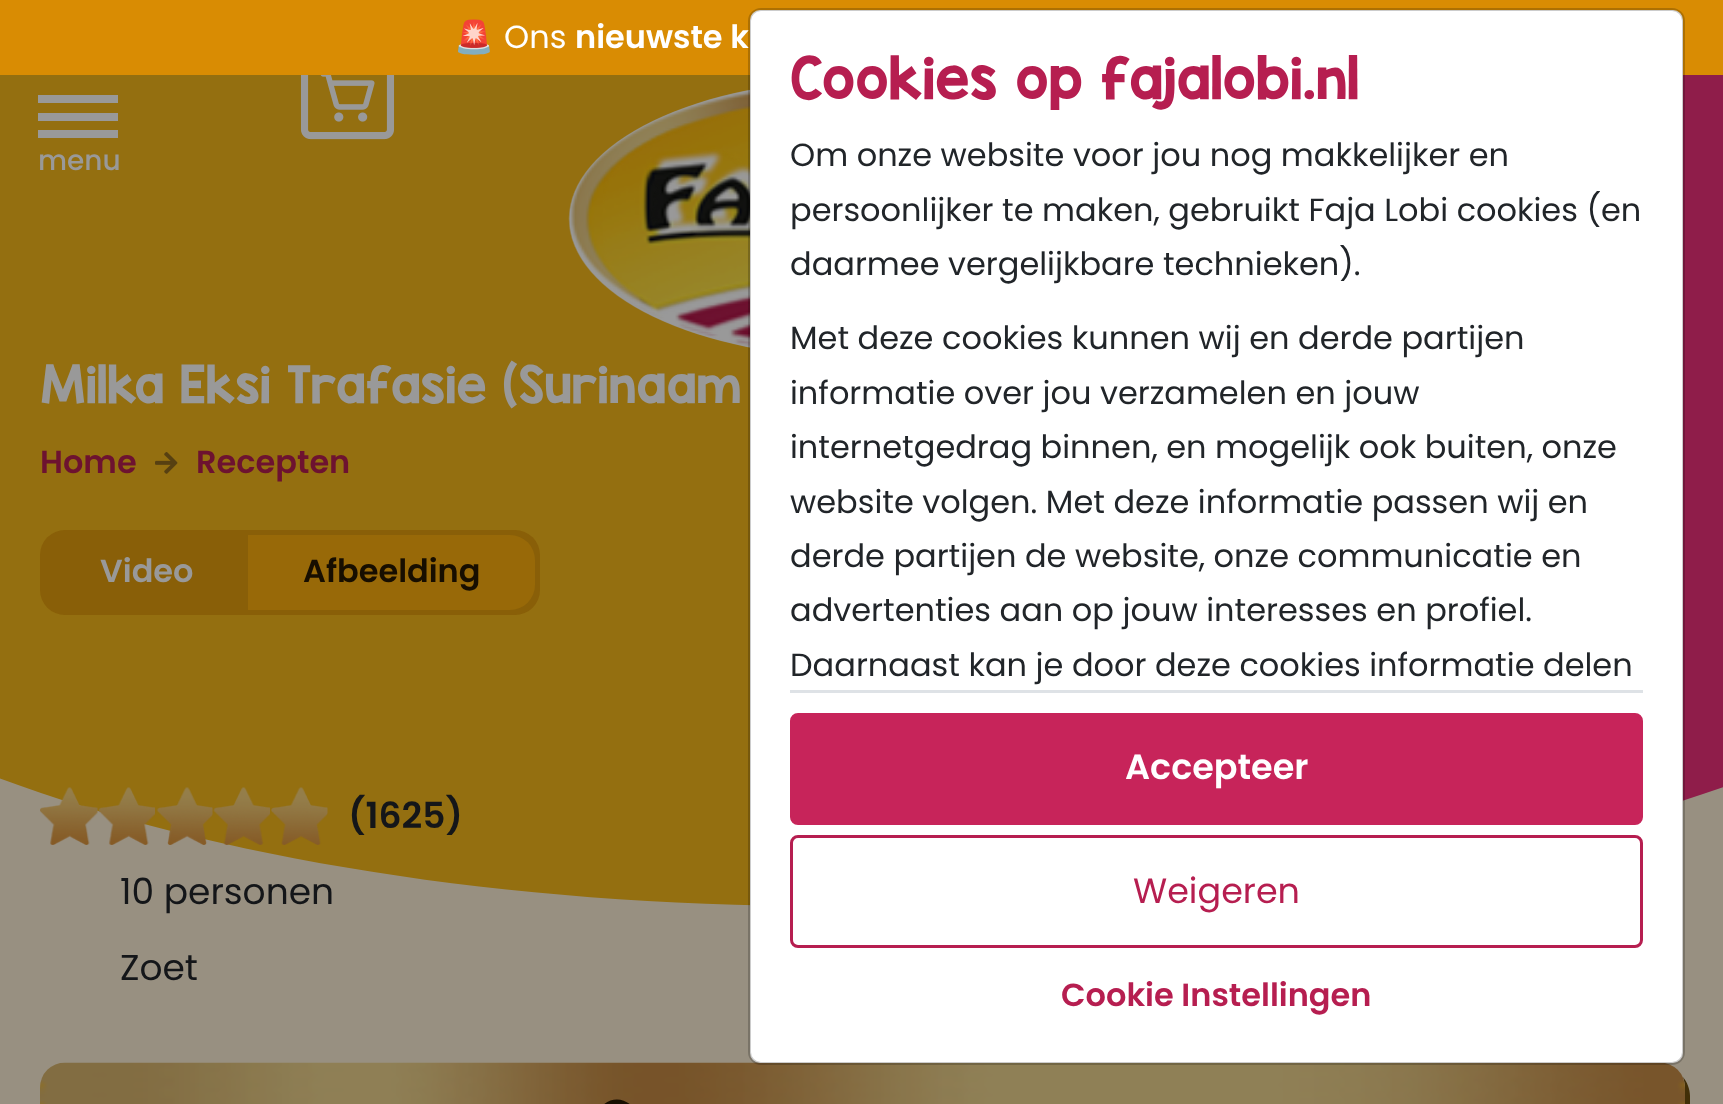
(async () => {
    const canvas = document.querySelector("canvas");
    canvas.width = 1723;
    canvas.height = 1104;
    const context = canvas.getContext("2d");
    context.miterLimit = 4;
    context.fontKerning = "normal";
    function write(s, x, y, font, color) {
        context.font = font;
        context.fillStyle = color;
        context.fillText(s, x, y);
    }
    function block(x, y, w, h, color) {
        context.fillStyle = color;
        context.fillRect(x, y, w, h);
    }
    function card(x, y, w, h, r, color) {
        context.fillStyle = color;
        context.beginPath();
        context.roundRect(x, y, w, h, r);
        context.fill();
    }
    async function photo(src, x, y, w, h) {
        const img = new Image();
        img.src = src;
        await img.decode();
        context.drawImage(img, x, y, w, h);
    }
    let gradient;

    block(0, 0, 1723, 1104, "rgb(152, 144, 129)");
    gradient = context.createLinearGradient(-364, 431, 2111, 431);
    gradient.addColorStop(0.01, "rgb(148, 111, 16)");
    gradient.addColorStop(0.53, "rgb(148, 111, 16)");
    gradient.addColorStop(0.74, "rgb(143, 29, 74)");
    gradient.addColorStop(1, "rgb(143, 29, 74)");
    context.fillStyle = gradient;
    context.beginPath();
    context.moveTo(-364, -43);
    context.lineTo(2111, -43);
    context.lineTo(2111, 450);
    context.bezierCurveTo(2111, 702, 1579, 906, 923, 906);
    context.lineTo(824, 906);
    context.bezierCurveTo(168, 906, -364, 702, -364, 450);
    context.closePath();
    context.fill();
    block(0, 0, 1723, 75, "rgb(217, 140, 3)");
    write("🚨", 454, 48, "32px Noto Color Emoji", "rgb(255, 255, 255)");
    write("Ons", 504, 48, "32px Poppins", "rgb(255, 255, 255)");
    write("nieuwste k", 575, 48, "600 32px Poppins", "rgb(255, 255, 255)");
    await photo("media/1.png", 300, 75, 95, 65);
    block(38, 95, 80, 8, "rgb(153, 153, 153)");
    block(38, 113, 80, 8, "rgb(153, 153, 153)");
    block(38, 130, 80, 8, "rgb(153, 153, 153)");
    write("menu", 38, 170, "500 28px Poppins", "rgb(153, 153, 153)");
    await photo("media/2.png", 568, 90, 182, 258);
    await photo("media/3.png", 569, 89, 181, 258);
    await photo("media/4.png", 603, 106, 147, 205);
    write("Milka Eksi Trafasie (Surinaam", 40, 403, "44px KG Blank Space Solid", "rgb(153, 153, 153)");
    write("Home", 40, 473, "600 32px Poppins", "rgb(109, 18, 48)");
    await photo("media/5.png", 155, 452, 23, 22);
    write("Recepten", 196, 473, "600 32px Poppins", "rgb(109, 18, 48)");
    card(40, 530, 500, 85, 25, "rgb(137, 95, 8)");
    write("Video", 100, 582, "600 32px Poppins", "rgb(153, 153, 153)");
    context.fillStyle = "rgb(152, 105, 8)";
    context.beginPath();
    context.roundRect(248, 535, 287, 75, [0, 25, 25, 0]);
    context.fill();
    write("Afbeelding", 303, 582, "600 32px Poppins", "rgb(23, 14, 0)");
    context.fillStyle = "rgb(65, 47, 8)";
    context.beginPath();
    context.moveTo(40, 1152);
    context.lineTo(40, 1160);
    context.bezierCurveTo(40, 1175, 53, 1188, 68, 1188);
    context.lineTo(1662, 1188);
    context.bezierCurveTo(1677, 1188, 1690, 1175, 1690, 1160);
    context.lineTo(1690, 1096);
    context.bezierCurveTo(1690, 1089, 1687, 1082, 1683, 1077);
    context.bezierCurveTo(1684, 1080, 1685, 1084, 1685, 1088);
    context.lineTo(1685, 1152);
    context.bezierCurveTo(1685, 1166, 1674, 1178, 1660, 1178);
    context.lineTo(65, 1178);
    context.bezierCurveTo(51, 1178, 40, 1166, 40, 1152);
    context.closePath();
    context.fill();
    await photo("media/11.png", 40, 1062, 1645, 42);
    card(750, 10, 933, 1053, 10, "rgb(255, 255, 255)");
    context.beginPath();
    context.roundRect(749.5, 9.5, 934, 1054, 11.5);
    context.strokeStyle = "rgba(0, 0, 0, 0.2)";
    context.lineWidth = 3;
    context.stroke();
    write("Cookies op fajalobi.nl", 790, 99, "50px KG Blank Space Solid", "rgb(182, 30, 80)");
    write("Om onze website voor jou nog makkelijker en", 790, 166, "32px Poppins", "rgb(33, 37, 41)");
    write("persoonlijker te maken, gebruikt Faja Lobi cookies (en", 790, 221, "32px Poppins", "rgb(33, 37, 41)");
    write("daarmee vergelijkbare technieken).", 790, 275, "32px Poppins", "rgb(33, 37, 41)");
    write("Met deze cookies kunnen wij en derde partijen", 790, 349, "32px Poppins", "rgb(33, 37, 41)");
    write("informatie over jou verzamelen en jouw", 790, 404, "32px Poppins", "rgb(33, 37, 41)");
    write("internetgedrag binnen, en mogelijk ook buiten, onze", 790, 458, "32px Poppins", "rgb(33, 37, 41)");
    write("website volgen. Met deze informatie passen wij en", 790, 513, "32px Poppins", "rgb(33, 37, 41)");
    write("derde partijen de website, onze communicatie en", 790, 567, "32px Poppins", "rgb(33, 37, 41)");
    write("advertenties aan op jouw interesses en profiel.", 790, 621, "32px Poppins", "rgb(33, 37, 41)");
    write("Daarnaast kan je door deze cookies informatie delen", 790, 676, "32px Poppins", "rgb(33, 37, 41)");
    block(790, 690, 853, 3, "rgb(222, 226, 230)");
    context.fillStyle = "rgb(199, 36, 90)";
    context.beginPath();
    context.roundRect(791.5, 714.5, 850, 109, 6.5);
    context.fill();
    context.strokeStyle = "rgb(199, 36, 90)";
    context.stroke();
    write("Accepteer", 1125, 779, "600 35px Poppins", "rgb(255, 255, 255)");
    context.beginPath();
    context.roundRect(791.5, 836.5, 850, 110, 6.5);
    context.strokeStyle = "rgb(182, 30, 80)";
    context.stroke();
    write("Weigeren", 1133, 903, "35px Poppins", "rgb(182, 30, 80)");
    write("Cookie Instellingen", 1061, 1006, "600 32px Poppins", "rgb(182, 30, 80)");
    await photo("media/6.png", 40, 787, 58, 58);
    await photo("media/7.png", 98, 787, 57, 58);
    await photo("media/8.png", 156, 787, 57, 58);
    await photo("media/9.png", 213, 787, 57, 58);
    await photo("media/10.png", 271, 787, 57, 58);
    write("(1625)", 348, 828, "600 36px Poppins", "rgb(20, 22, 25)");
    write("10 personen", 120, 904, "36px Poppins", "rgb(20, 22, 25)");
    write("Zoet", 120, 980, "36px Poppins", "rgb(20, 22, 25)");
    context.fillStyle = "rgb(23, 14, 0)";
    context.beginPath();
    context.moveTo(602, 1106);
    context.bezierCurveTo(622, 1086, 652, 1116, 632, 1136);
    context.bezierCurveTo(612, 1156, 582, 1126, 602, 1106);
    context.closePath();
    context.moveTo(627, 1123);
    context.bezierCurveTo(631, 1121, 625, 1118, 619, 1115);
    context.lineTo(614, 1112);
    context.bezierCurveTo(613, 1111, 611, 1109, 609, 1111);
    context.bezierCurveTo(608, 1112, 609, 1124, 609, 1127);
    context.bezierCurveTo(609, 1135, 611, 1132, 617, 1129);
    context.closePath();
    context.fill();
})();
